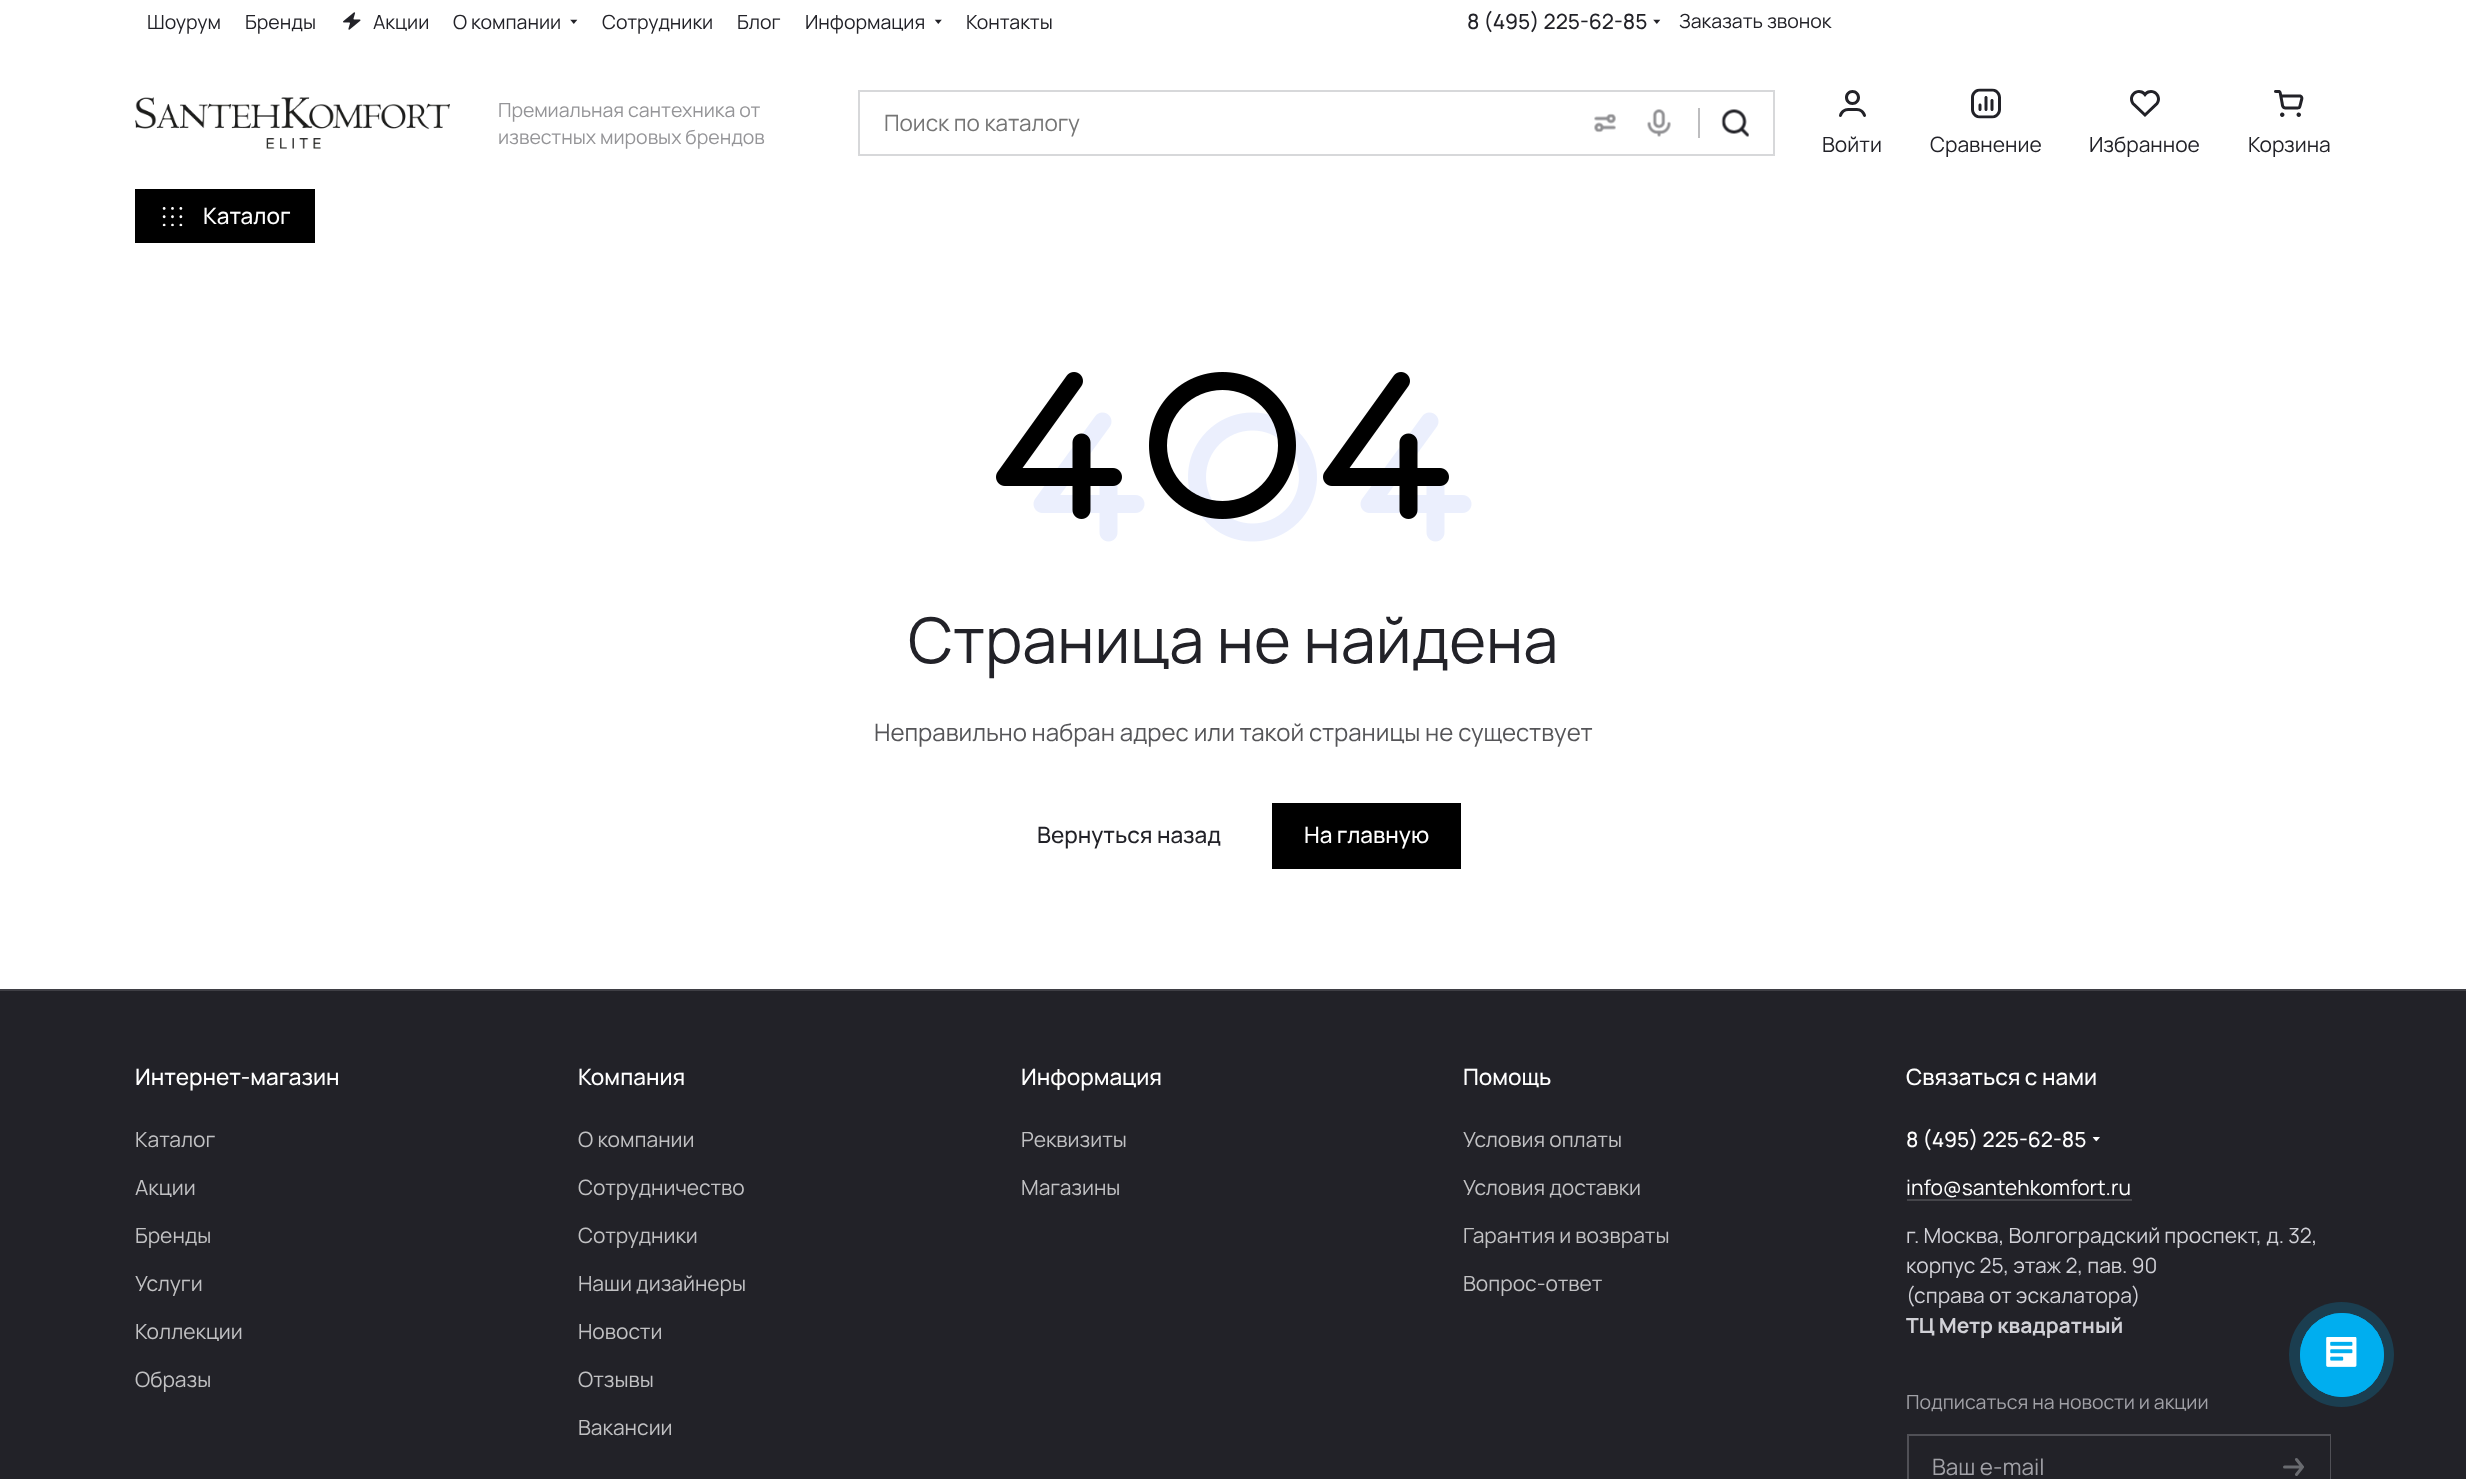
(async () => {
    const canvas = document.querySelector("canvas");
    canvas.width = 2474;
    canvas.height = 1479;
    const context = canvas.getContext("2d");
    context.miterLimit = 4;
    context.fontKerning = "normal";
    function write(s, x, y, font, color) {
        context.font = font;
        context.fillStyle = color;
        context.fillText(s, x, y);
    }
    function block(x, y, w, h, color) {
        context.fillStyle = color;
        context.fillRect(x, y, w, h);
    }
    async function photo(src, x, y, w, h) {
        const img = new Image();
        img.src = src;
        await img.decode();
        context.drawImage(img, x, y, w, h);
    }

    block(0, 0, 2474, 1479, "rgb(255, 255, 255)");
    write("Шоурум", 147, 29, "200 19.5px 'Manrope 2'", "rgb(34, 34, 40)");
    write("Бренды", 245, 29, "200 19.5px 'Manrope 2'", "rgb(34, 34, 40)");
    await photo("media/1.png", 343, 12, 18, 18);
    write("Акции", 373, 29, "200 19.5px 'Manrope 2'", "rgb(34, 34, 40)");
    write("О компании", 453, 29, "200 19.5px 'Manrope 2'", "rgb(34, 34, 40)");
    await photo("media/2.png", 570, 19, 8, 5);
    write("Сотрудники", 602, 29, "200 19.5px 'Manrope 2'", "rgb(34, 34, 40)");
    write("Блог", 737, 29, "200 19.5px 'Manrope 2'", "rgb(34, 34, 40)");
    write("Информация", 805, 29, "200 19.5px 'Manrope 2'", "rgb(34, 34, 40)");
    await photo("media/3.png", 934, 19, 8, 5);
    write("Контакты", 966, 29, "200 19.5px 'Manrope 2'", "rgb(34, 34, 40)");
    write("8 (495) 225-62-85", 1467, 29, "200 21px Manrope", "rgb(34, 34, 40)");
    await photo("media/2.png", 1653, 19, 8, 5);
    write("Заказать звонок", 1679, 28, "200 19.5px 'Manrope 2'", "rgb(34, 34, 40)");
    await photo("media/4.png", 135, 97, 315, 52);
    write("Премиальная сантехника от", 498, 117, "200 19.5px 'Manrope 2'", "rgb(149, 149, 152)");
    write("известных мировых брендов", 498, 144, "200 19.5px 'Manrope 2'", "rgb(149, 149, 152)");
    context.strokeStyle = "rgb(215, 216, 218)";
    context.lineWidth = 2;
    context.strokeRect(859, 91, 915, 64);
    write("Поиск по каталогу", 884, 131, "200 22.5px 'Manrope 2'", "rgb(117, 117, 117)");
    await photo("media/5.png", 1594, 113, 22, 20);
    await photo("media/6.png", 1647, 109, 24, 28);
    block(1698, 108, 2, 30, "rgb(189, 189, 191)");
    await photo("media/7.png", 1721, 109, 28, 28);
    await photo("media/8.png", 1839, 90, 27, 27);
    write("Войти", 1822, 152, "200 21px 'Manrope 2'", "rgb(34, 34, 40)");
    await photo("media/9.png", 1971, 88, 30, 31);
    write("Сравнение", 1930, 152, "200 21px 'Manrope 2'", "rgb(34, 34, 40)");
    await photo("media/10.png", 2130, 90, 30, 27);
    write("Избранное", 2089, 152, "200 21px 'Manrope 2'", "rgb(34, 34, 40)");
    await photo("media/11.png", 2274, 90, 30, 27);
    write("Корзина", 2248, 152, "200 21px 'Manrope 2'", "rgb(34, 34, 40)");
    block(135, 189, 180, 54, "rgb(0, 0, 0)");
    await photo("media/12.png", 162, 207, 21, 20);
    write("Каталог", 203, 224, "200 22.5px Manrope", "rgb(255, 255, 255)");
    await photo("media/13.png", 996, 372, 476, 170);
    write("Страница не найдена", 908, 663, "200 63px 'Manrope 2'", "rgb(34, 34, 40)");
    write("Неправильно набран адрес или такой страницы не существует", 874, 741, "200 24px 'Manrope 2'", "rgb(85, 85, 88)");
    write("Вернуться назад", 1037, 843, "200 22.5px Manrope", "rgb(34, 34, 40)");
    block(1272, 803, 189, 66, "rgb(0, 0, 0)");
    write("На главную", 1304, 843, "200 22.5px Manrope", "rgb(255, 255, 255)");
    block(0, 991, 2466, 488, "rgb(34, 34, 40)");
    block(0, 989, 2466, 2, "rgb(63, 63, 69)");
    write("Интернет-магазин", 135, 1085, "200 22.5px Manrope", "rgb(255, 255, 255)");
    write("Каталог", 135, 1147, "200 21px 'Manrope 2'", "rgb(193, 193, 195)");
    write("Акции", 135, 1195, "200 21px 'Manrope 2'", "rgb(193, 193, 195)");
    write("Бренды", 135, 1243, "200 21px 'Manrope 2'", "rgb(193, 193, 195)");
    write("Услуги", 135, 1291, "200 21px 'Manrope 2'", "rgb(193, 193, 195)");
    write("Коллекции", 135, 1339, "200 21px 'Manrope 2'", "rgb(193, 193, 195)");
    write("Образы", 135, 1387, "200 21px 'Manrope 2'", "rgb(193, 193, 195)");
    write("Компания", 578, 1085, "200 22.5px Manrope", "rgb(255, 255, 255)");
    write("О компании", 578, 1147, "200 21px 'Manrope 2'", "rgb(193, 193, 195)");
    write("Сотрудничество", 578, 1195, "200 21px 'Manrope 2'", "rgb(193, 193, 195)");
    write("Сотрудники", 578, 1243, "200 21px 'Manrope 2'", "rgb(193, 193, 195)");
    write("Наши дизайнеры", 578, 1291, "200 21px 'Manrope 2'", "rgb(193, 193, 195)");
    write("Новости", 578, 1339, "200 21px 'Manrope 2'", "rgb(193, 193, 195)");
    write("Отзывы", 578, 1387, "200 21px 'Manrope 2'", "rgb(193, 193, 195)");
    write("Вакансии", 578, 1435, "200 21px 'Manrope 2'", "rgb(193, 193, 195)");
    write("Информация", 1021, 1085, "200 22.5px Manrope", "rgb(255, 255, 255)");
    write("Реквизиты", 1021, 1147, "200 21px 'Manrope 2'", "rgb(193, 193, 195)");
    write("Магазины", 1021, 1195, "200 21px 'Manrope 2'", "rgb(193, 193, 195)");
    write("Помощь", 1463, 1085, "200 22.5px Manrope", "rgb(255, 255, 255)");
    write("Условия оплаты", 1463, 1147, "200 21px 'Manrope 2'", "rgb(193, 193, 195)");
    write("Условия доставки", 1463, 1195, "200 21px 'Manrope 2'", "rgb(193, 193, 195)");
    write("Гарантия и возвраты", 1463, 1243, "200 21px 'Manrope 2'", "rgb(193, 193, 195)");
    write("Вопрос-ответ", 1463, 1291, "200 21px 'Manrope 2'", "rgb(193, 193, 195)");
    write("Связаться с нами", 1906, 1085, "200 22.5px Manrope", "rgb(255, 255, 255)");
    write("8 (495) 225-62-85", 1906, 1147, "200 21px Manrope", "rgb(255, 255, 255)");
    await photo("media/14.png", 2092, 1137, 8, 5);
    write("info@santehkomfort.ru", 1906, 1195, "200 21px 'Manrope 2'", "rgb(255, 255, 255)");
    block(1907, 1199, 225, 2, "rgb(69, 69, 74)");
    write("г. Москва, Волгоградский проспект, д. 32,", 1906, 1243, "200 21px 'Manrope 2'", "rgb(209, 209, 215)");
    write("корпус 25, этаж 2, пав. 90", 1906, 1273, "200 21px 'Manrope 2'", "rgb(209, 209, 215)");
    write("(справа от эскалатора)", 1906, 1303, "200 21px 'Manrope 2'", "rgb(209, 209, 215)");
    write("ТЦ Метр квадратный", 1906, 1333, "200 21px 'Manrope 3'", "rgb(209, 209, 215)");
    write("Подписаться на новости и акции", 1906, 1409, "200 19.5px 'Manrope 2'", "rgb(161, 161, 167)");
    context.strokeStyle = "rgb(80, 80, 86)";
    context.strokeRect(1908, 1435, 422, 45);
    write("Ваш e-mail", 1932, 1475, "200 22.5px 'Manrope 2'", "rgb(161, 161, 167)");
    block(2329, 1436, 1, 43, "rgb(34, 34, 40)");
    await photo("media/15.png", 2283, 1458, 21, 18);
    context.fillStyle = "rgb(27, 62, 80)";
    context.beginPath();
    context.arc(2341.5, 1354.5, 52.5, 0, Math.PI * 2);
    context.fill();
    context.beginPath();
    context.arc(2342, 1355, 41.5, 0, Math.PI * 2);
    context.strokeStyle = "rgb(0, 174, 239)";
    context.lineWidth = 1;
    context.stroke();
    context.fillStyle = "rgb(0, 174, 239)";
    context.beginPath();
    context.arc(2342, 1355, 42, 0, Math.PI * 2);
    context.fill();
    await photo("media/16.png", 2326, 1337, 31, 30);
})();
